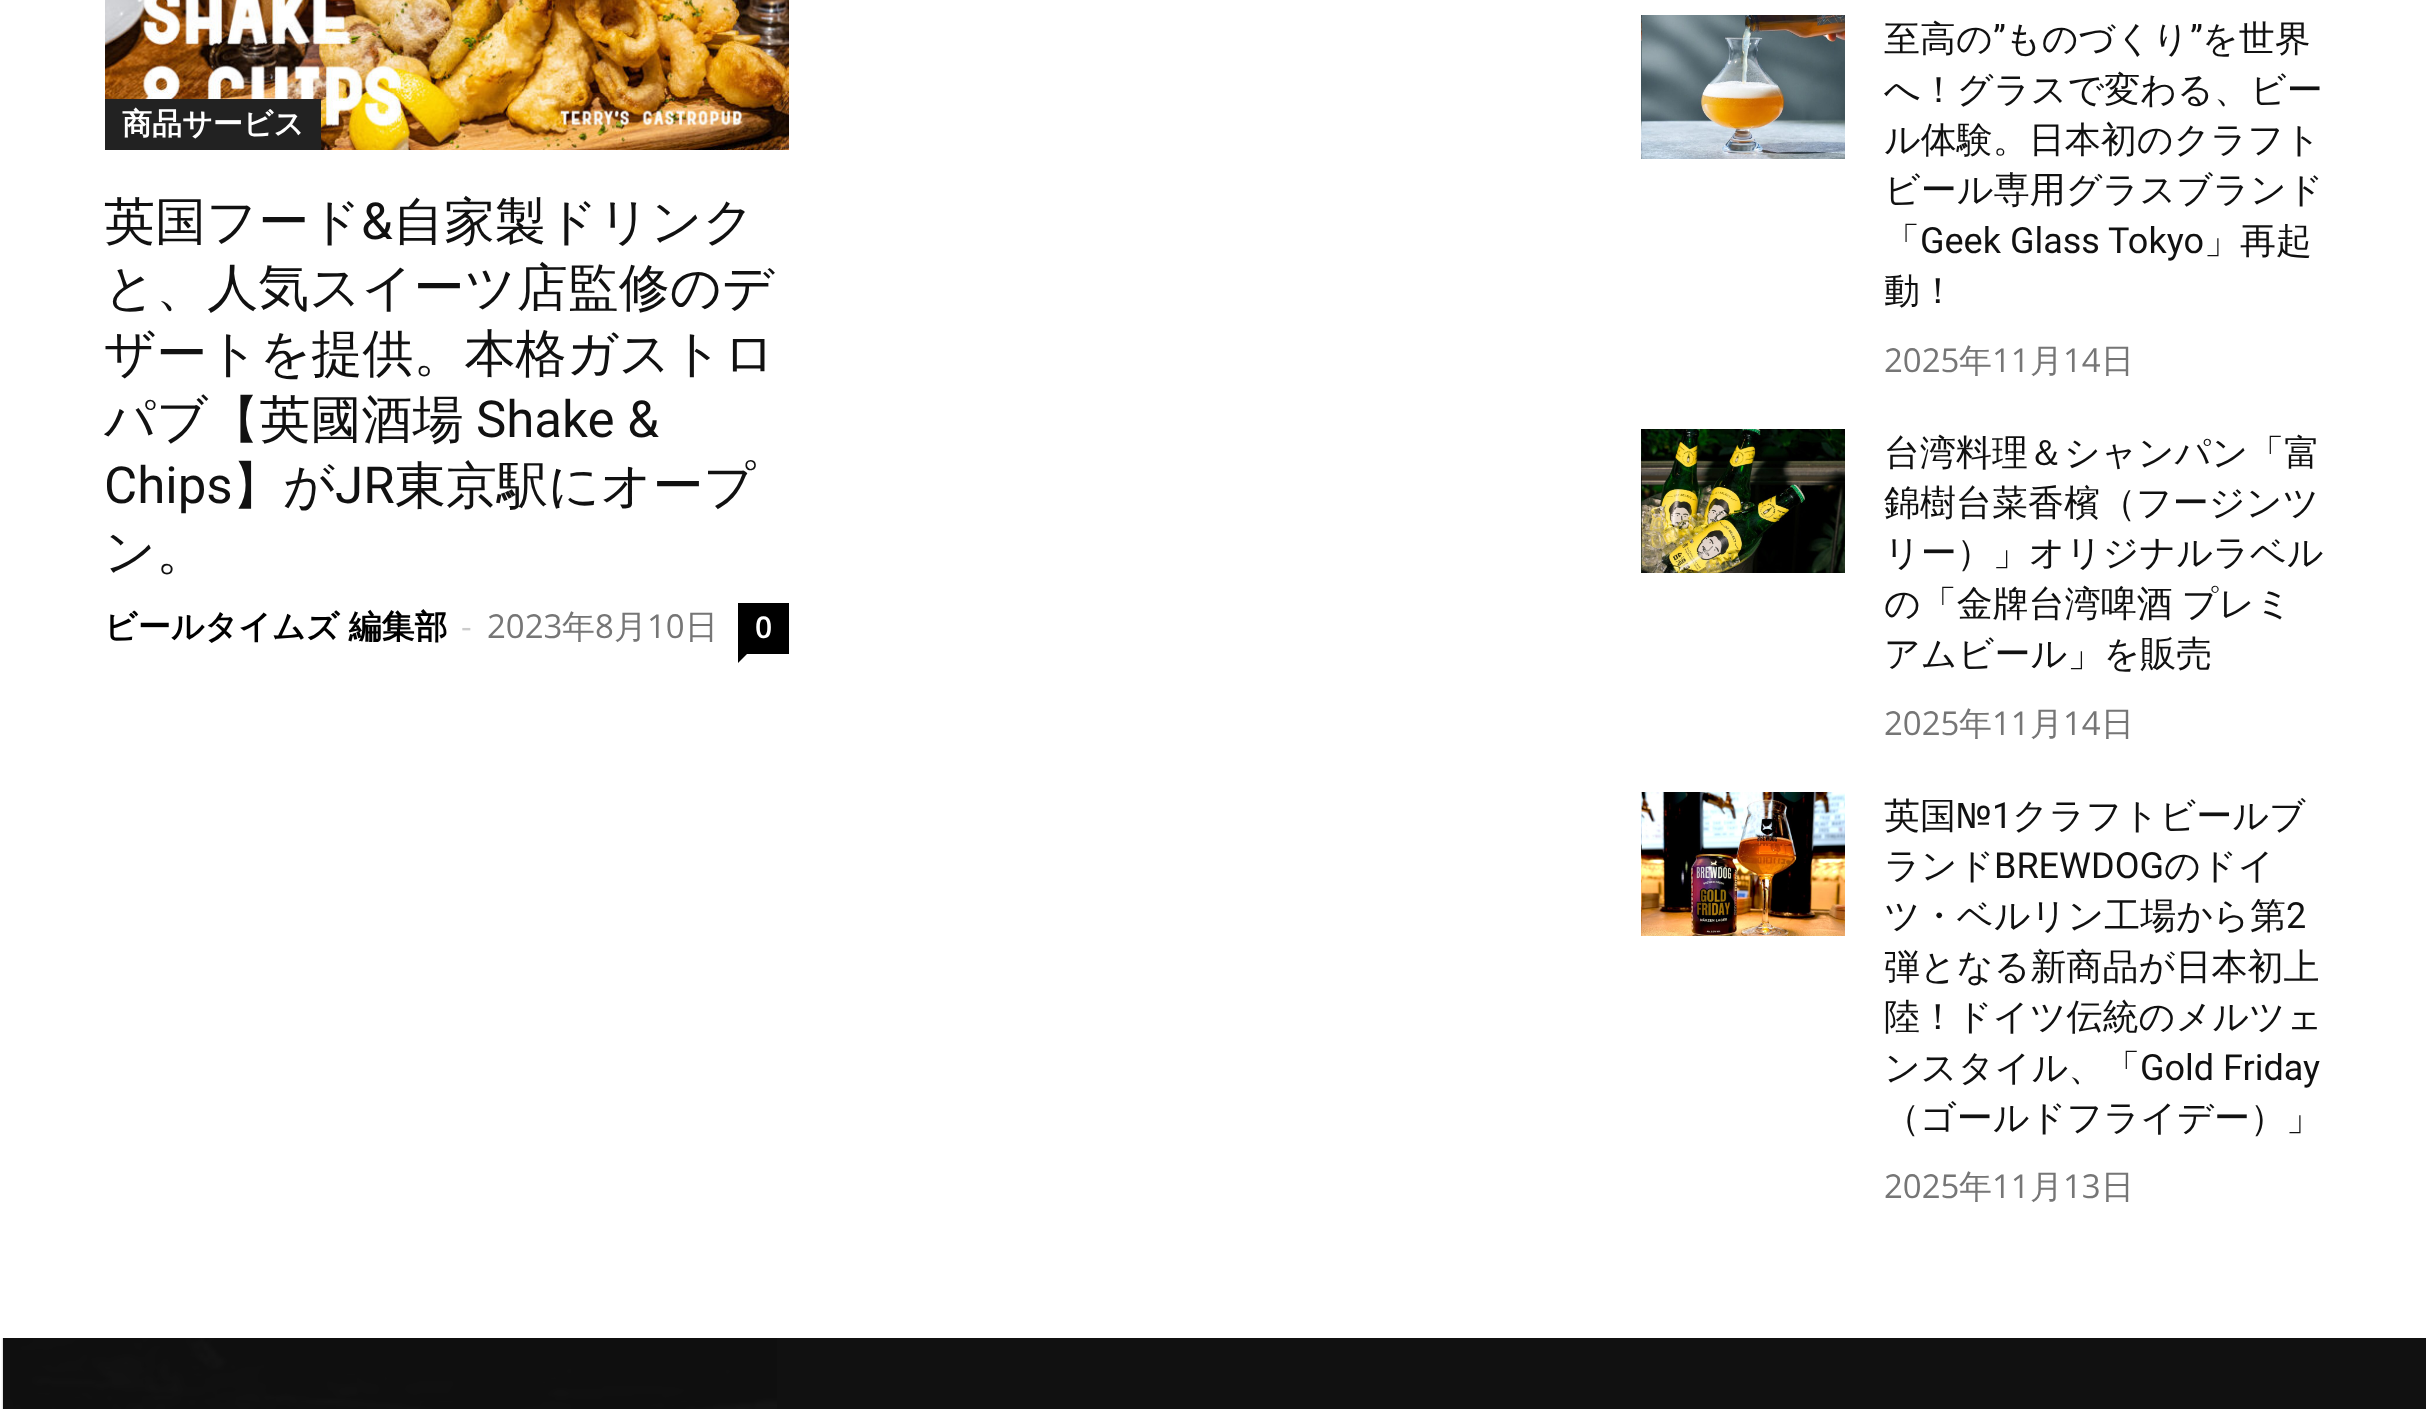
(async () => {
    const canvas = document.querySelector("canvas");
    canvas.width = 2426;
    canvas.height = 1409;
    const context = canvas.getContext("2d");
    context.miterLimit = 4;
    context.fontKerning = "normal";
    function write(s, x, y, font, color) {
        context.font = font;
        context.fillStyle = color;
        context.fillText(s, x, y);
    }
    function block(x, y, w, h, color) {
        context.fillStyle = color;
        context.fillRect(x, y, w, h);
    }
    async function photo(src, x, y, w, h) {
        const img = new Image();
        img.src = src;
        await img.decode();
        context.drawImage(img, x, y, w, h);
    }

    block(0, 0, 2426, 1409, "rgb(255, 255, 255)");
    await photo("media/1.png", 105, 0, 684, 150);
    block(105, 99, 216, 51, "rgb(34, 34, 34)");
    write("商品サービス", 122, 134, "bold 30px WenQuanYi Zen Hei", "rgb(255, 255, 255)");
    write("英国フード", 104, 239, "500 51px WenQuanYi Zen Hei", "rgb(17, 17, 17)");
    write("&", 361, 239, "51px Roboto", "rgb(17, 17, 17)");
    write("自家製ドリンク", 393, 239, "500 51px WenQuanYi Zen Hei", "rgb(17, 17, 17)");
    write("と、人気スイーツ店監修のデ", 104, 305, "500 51px WenQuanYi Zen Hei", "rgb(17, 17, 17)");
    write("ザートを提供。本格ガストロ", 104, 371, "500 51px WenQuanYi Zen Hei", "rgb(17, 17, 17)");
    write("パブ【英國酒場", 104, 437, "500 51px WenQuanYi Zen Hei", "rgb(17, 17, 17)");
    write("Shake &", 476, 437, "51px Roboto", "rgb(17, 17, 17)");
    write("Chips", 104, 503, "51px Roboto", "rgb(17, 17, 17)");
    write("】が", 232, 503, "500 51px WenQuanYi Zen Hei", "rgb(17, 17, 17)");
    write("JR", 335, 503, "51px Roboto", "rgb(17, 17, 17)");
    write("東京駅にオープ", 395, 503, "500 51px WenQuanYi Zen Hei", "rgb(17, 17, 17)");
    write("ン。", 104, 569, "500 51px WenQuanYi Zen Hei", "rgb(17, 17, 17)");
    context.wordSpacing = "-1px";
    write("ビールタイムズ 編集部", 104, 638, "bold 33px WenQuanYi Zen Hei", "rgb(0, 0, 0)");
    context.wordSpacing = "0px";
    write("-", 461, 638, "33px Open Sans", "rgb(204, 204, 204)");
    write("2023", 487, 638, "33px Open Sans", "rgb(118, 118, 118)");
    write("年", 562, 638, "500 33px WenQuanYi Zen Hei", "rgb(118, 118, 118)");
    write("8", 595, 638, "33px Open Sans", "rgb(118, 118, 118)");
    write("月", 614, 638, "500 33px WenQuanYi Zen Hei", "rgb(118, 118, 118)");
    write("10", 647, 638, "33px Open Sans", "rgb(118, 118, 118)");
    write("日", 685, 638, "500 33px WenQuanYi Zen Hei", "rgb(118, 118, 118)");
    block(738, 603, 51, 51, "rgb(0, 0, 0)");
    write("0", 755, 638, "600 30px Open Sans", "rgb(255, 255, 255)");
    context.fillStyle = "rgb(0, 0, 0)";
    context.beginPath();
    context.moveTo(738, 654);
    context.lineTo(747, 654);
    context.lineTo(738, 663);
    context.closePath();
    context.fill();
    await photo("media/2.png", 1641, 15, 204, 144);
    write("至高の", 1884, 51, "500 36px WenQuanYi Zen Hei", "rgb(17, 17, 17)");
    write("”", 1993, 51, "36px Roboto", "rgb(17, 17, 17)");
    write("ものづくり", 2005, 51, "500 36px WenQuanYi Zen Hei", "rgb(17, 17, 17)");
    write("”", 2190, 51, "36px Roboto", "rgb(17, 17, 17)");
    write("を世界", 2202, 51, "500 36px WenQuanYi Zen Hei", "rgb(17, 17, 17)");
    write("へ！グラスで変わる、ビー", 1884, 102, "500 36px WenQuanYi Zen Hei", "rgb(17, 17, 17)");
    write("ル体験。日本初のクラフト", 1884, 152, "500 36px WenQuanYi Zen Hei", "rgb(17, 17, 17)");
    write("ビール専用グラスブランド", 1884, 202, "500 36px WenQuanYi Zen Hei", "rgb(17, 17, 17)");
    write("「", 1884, 253, "500 36px WenQuanYi Zen Hei", "rgb(17, 17, 17)");
    write("Geek Glass Tokyo", 1920, 253, "36px Roboto", "rgb(17, 17, 17)");
    write("」再起", 2204, 253, "500 36px WenQuanYi Zen Hei", "rgb(17, 17, 17)");
    write("動！", 1884, 303, "500 36px WenQuanYi Zen Hei", "rgb(17, 17, 17)");
    write("2025", 1884, 372, "33px Open Sans", "rgb(118, 118, 118)");
    write("年", 1959, 372, "500 33px WenQuanYi Zen Hei", "rgb(118, 118, 118)");
    write("11", 1992, 372, "33px Open Sans", "rgb(118, 118, 118)");
    write("月", 2030, 372, "500 33px WenQuanYi Zen Hei", "rgb(118, 118, 118)");
    write("14", 2063, 372, "33px Open Sans", "rgb(118, 118, 118)");
    write("日", 2101, 372, "500 33px WenQuanYi Zen Hei", "rgb(118, 118, 118)");
    await photo("media/3.png", 1641, 429, 204, 144);
    write("台湾料理＆シャンパン「富", 1884, 465, "500 36px WenQuanYi Zen Hei", "rgb(17, 17, 17)");
    write("錦樹台菜香檳（フージンツ", 1884, 515, "500 36px WenQuanYi Zen Hei", "rgb(17, 17, 17)");
    write("リー）」オリジナルラベル", 1884, 565, "500 36px WenQuanYi Zen Hei", "rgb(17, 17, 17)");
    context.wordSpacing = "-2px";
    write("の「金牌台湾啤酒 プレミ", 1884, 616, "500 36px WenQuanYi Zen Hei", "rgb(17, 17, 17)");
    context.wordSpacing = "0px";
    write("アムビール」を販売", 1884, 666, "500 36px WenQuanYi Zen Hei", "rgb(17, 17, 17)");
    write("2025", 1884, 735, "33px Open Sans", "rgb(118, 118, 118)");
    write("年", 1959, 735, "500 33px WenQuanYi Zen Hei", "rgb(118, 118, 118)");
    write("11", 1992, 735, "33px Open Sans", "rgb(118, 118, 118)");
    write("月", 2030, 735, "500 33px WenQuanYi Zen Hei", "rgb(118, 118, 118)");
    write("14", 2063, 735, "33px Open Sans", "rgb(118, 118, 118)");
    write("日", 2101, 735, "500 33px WenQuanYi Zen Hei", "rgb(118, 118, 118)");
    await photo("media/4.png", 1641, 792, 204, 144);
    write("英国№", 1884, 828, "500 36px WenQuanYi Zen Hei", "rgb(17, 17, 17)");
    write("1", 1992, 828, "36px Roboto", "rgb(17, 17, 17)");
    write("クラフトビールブ", 2012, 828, "500 36px WenQuanYi Zen Hei", "rgb(17, 17, 17)");
    write("ランド", 1884, 878, "500 36px WenQuanYi Zen Hei", "rgb(17, 17, 17)");
    write("BREWDOG", 1994, 878, "36px Roboto", "rgb(17, 17, 17)");
    write("のドイ", 2164, 878, "500 36px WenQuanYi Zen Hei", "rgb(17, 17, 17)");
    write("ツ・ベルリン工場から第", 1884, 928, "500 36px WenQuanYi Zen Hei", "rgb(17, 17, 17)");
    write("2", 2286, 928, "36px Roboto", "rgb(17, 17, 17)");
    write("弾となる新商品が日本初上", 1884, 979, "500 36px WenQuanYi Zen Hei", "rgb(17, 17, 17)");
    write("陸！ドイツ伝統のメルツェ", 1884, 1029, "500 36px WenQuanYi Zen Hei", "rgb(17, 17, 17)");
    write("ンスタイル、「", 1884, 1080, "500 36px WenQuanYi Zen Hei", "rgb(17, 17, 17)");
    write("Gold Friday", 2140, 1080, "36px Roboto", "rgb(17, 17, 17)");
    write("（ゴールドフライデー）」", 1884, 1130, "500 36px WenQuanYi Zen Hei", "rgb(17, 17, 17)");
    write("2025", 1884, 1198, "33px Open Sans", "rgb(118, 118, 118)");
    write("年", 1959, 1198, "500 33px WenQuanYi Zen Hei", "rgb(118, 118, 118)");
    write("11", 1992, 1198, "33px Open Sans", "rgb(118, 118, 118)");
    write("月", 2030, 1198, "500 33px WenQuanYi Zen Hei", "rgb(118, 118, 118)");
    write("13", 2063, 1198, "33px Open Sans", "rgb(118, 118, 118)");
    write("日", 2101, 1198, "500 33px WenQuanYi Zen Hei", "rgb(118, 118, 118)");
    block(3, 1338, 2423, 71, "rgb(17, 17, 17)");
    await photo("media/5.png", 1, 1338, 776, 71);
})();
